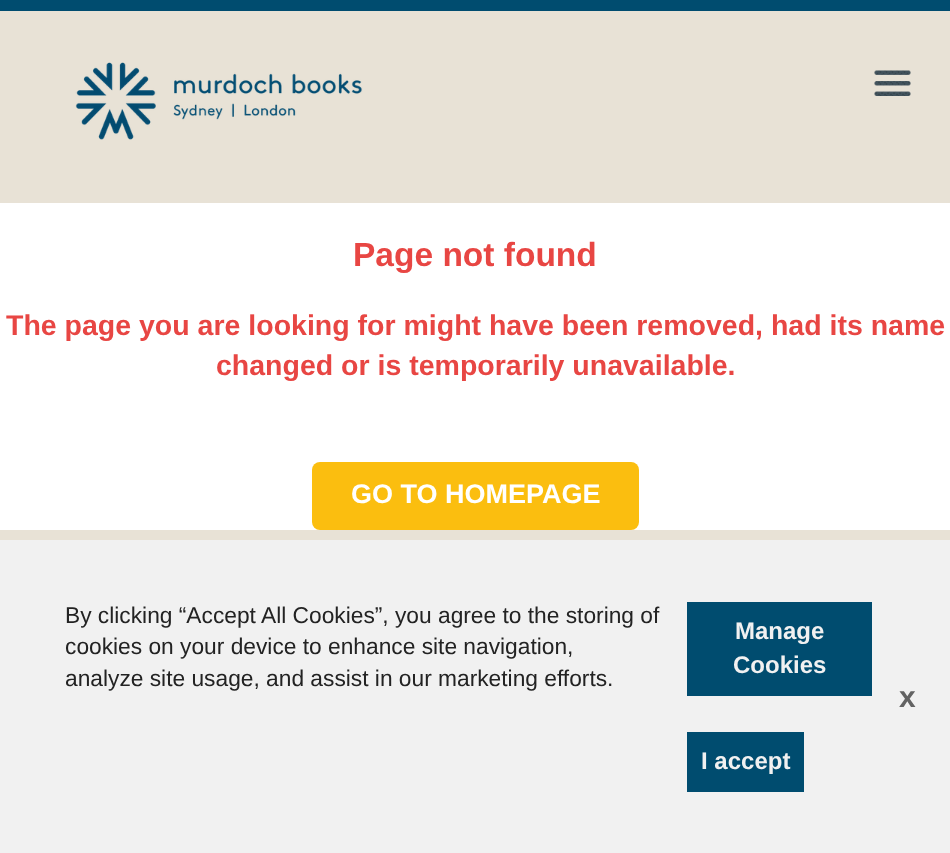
(async () => {
    const canvas = document.querySelector("canvas");
    canvas.width = 950;
    canvas.height = 853;
    const context = canvas.getContext("2d");
    context.miterLimit = 4;
    context.fontKerning = "normal";
    function write(s, x, y, font, color) {
        context.font = font;
        context.fillStyle = color;
        context.fillText(s, x, y);
    }
    function block(x, y, w, h, color) {
        context.fillStyle = color;
        context.fillRect(x, y, w, h);
    }
    function card(x, y, w, h, r, color) {
        context.fillStyle = color;
        context.beginPath();
        context.roundRect(x, y, w, h, r);
        context.fill();
    }
    async function photo(src, x, y, w, h) {
        const img = new Image();
        img.src = src;
        await img.decode();
        context.drawImage(img, x, y, w, h);
    }

    block(0, 0, 950, 853, "rgb(232, 226, 214)");
    block(0, 0, 950, 11, "rgb(0, 76, 111)");
    await photo("media/1.png", 75, 62, 288, 78);
    await photo("media/2.png", 874, 70, 37, 26);
    block(0, 203, 950, 327, "rgb(255, 255, 255)");
    write("Page not found", 353, 266, "bold 33.5px Liberation Sans", "rgb(232, 70, 67)");
    write("The page you are looking for might have been removed, had its name", 6, 335, "bold 28.5px Liberation Sans", "rgb(232, 70, 67)");
    write("changed or is temporarily unavailable.", 216, 375, "bold 28.5px Liberation Sans", "rgb(232, 70, 67)");
    card(312, 462, 327, 68, 8, "rgb(251, 190, 15)");
    write("GO TO HOMEPAGE", 351, 503, "bold 27px Liberation Sans", "rgb(255, 255, 255)");
    block(0, 540, 950, 313, "rgb(241, 241, 241)");
    write("By clicking “Accept All Cookies”, you agree to the storing of", 65, 623, "22.75px Liberation Sans", "rgb(35, 35, 35)");
    write("cookies on your device to enhance site navigation,", 65, 654, "22.75px Liberation Sans", "rgb(35, 35, 35)");
    write("analyze site usage, and assist in our marketing efforts.", 65, 686, "22.75px Liberation Sans", "rgb(35, 35, 35)");
    block(687, 602, 185, 94, "rgb(0, 76, 111)");
    write("Manage", 735, 639, "bold 24px Liberation Sans", "rgb(241, 241, 241)");
    write("Cookies", 733, 673, "bold 24px Liberation Sans", "rgb(241, 241, 241)");
    block(687, 732, 117, 60, "rgb(0, 76, 111)");
    write("I accept", 701, 769, "bold 24px Liberation Sans", "rgb(241, 241, 241)");
    write("x", 899, 707, "bold 30px Liberation Sans", "rgb(99, 99, 99)");
})();
